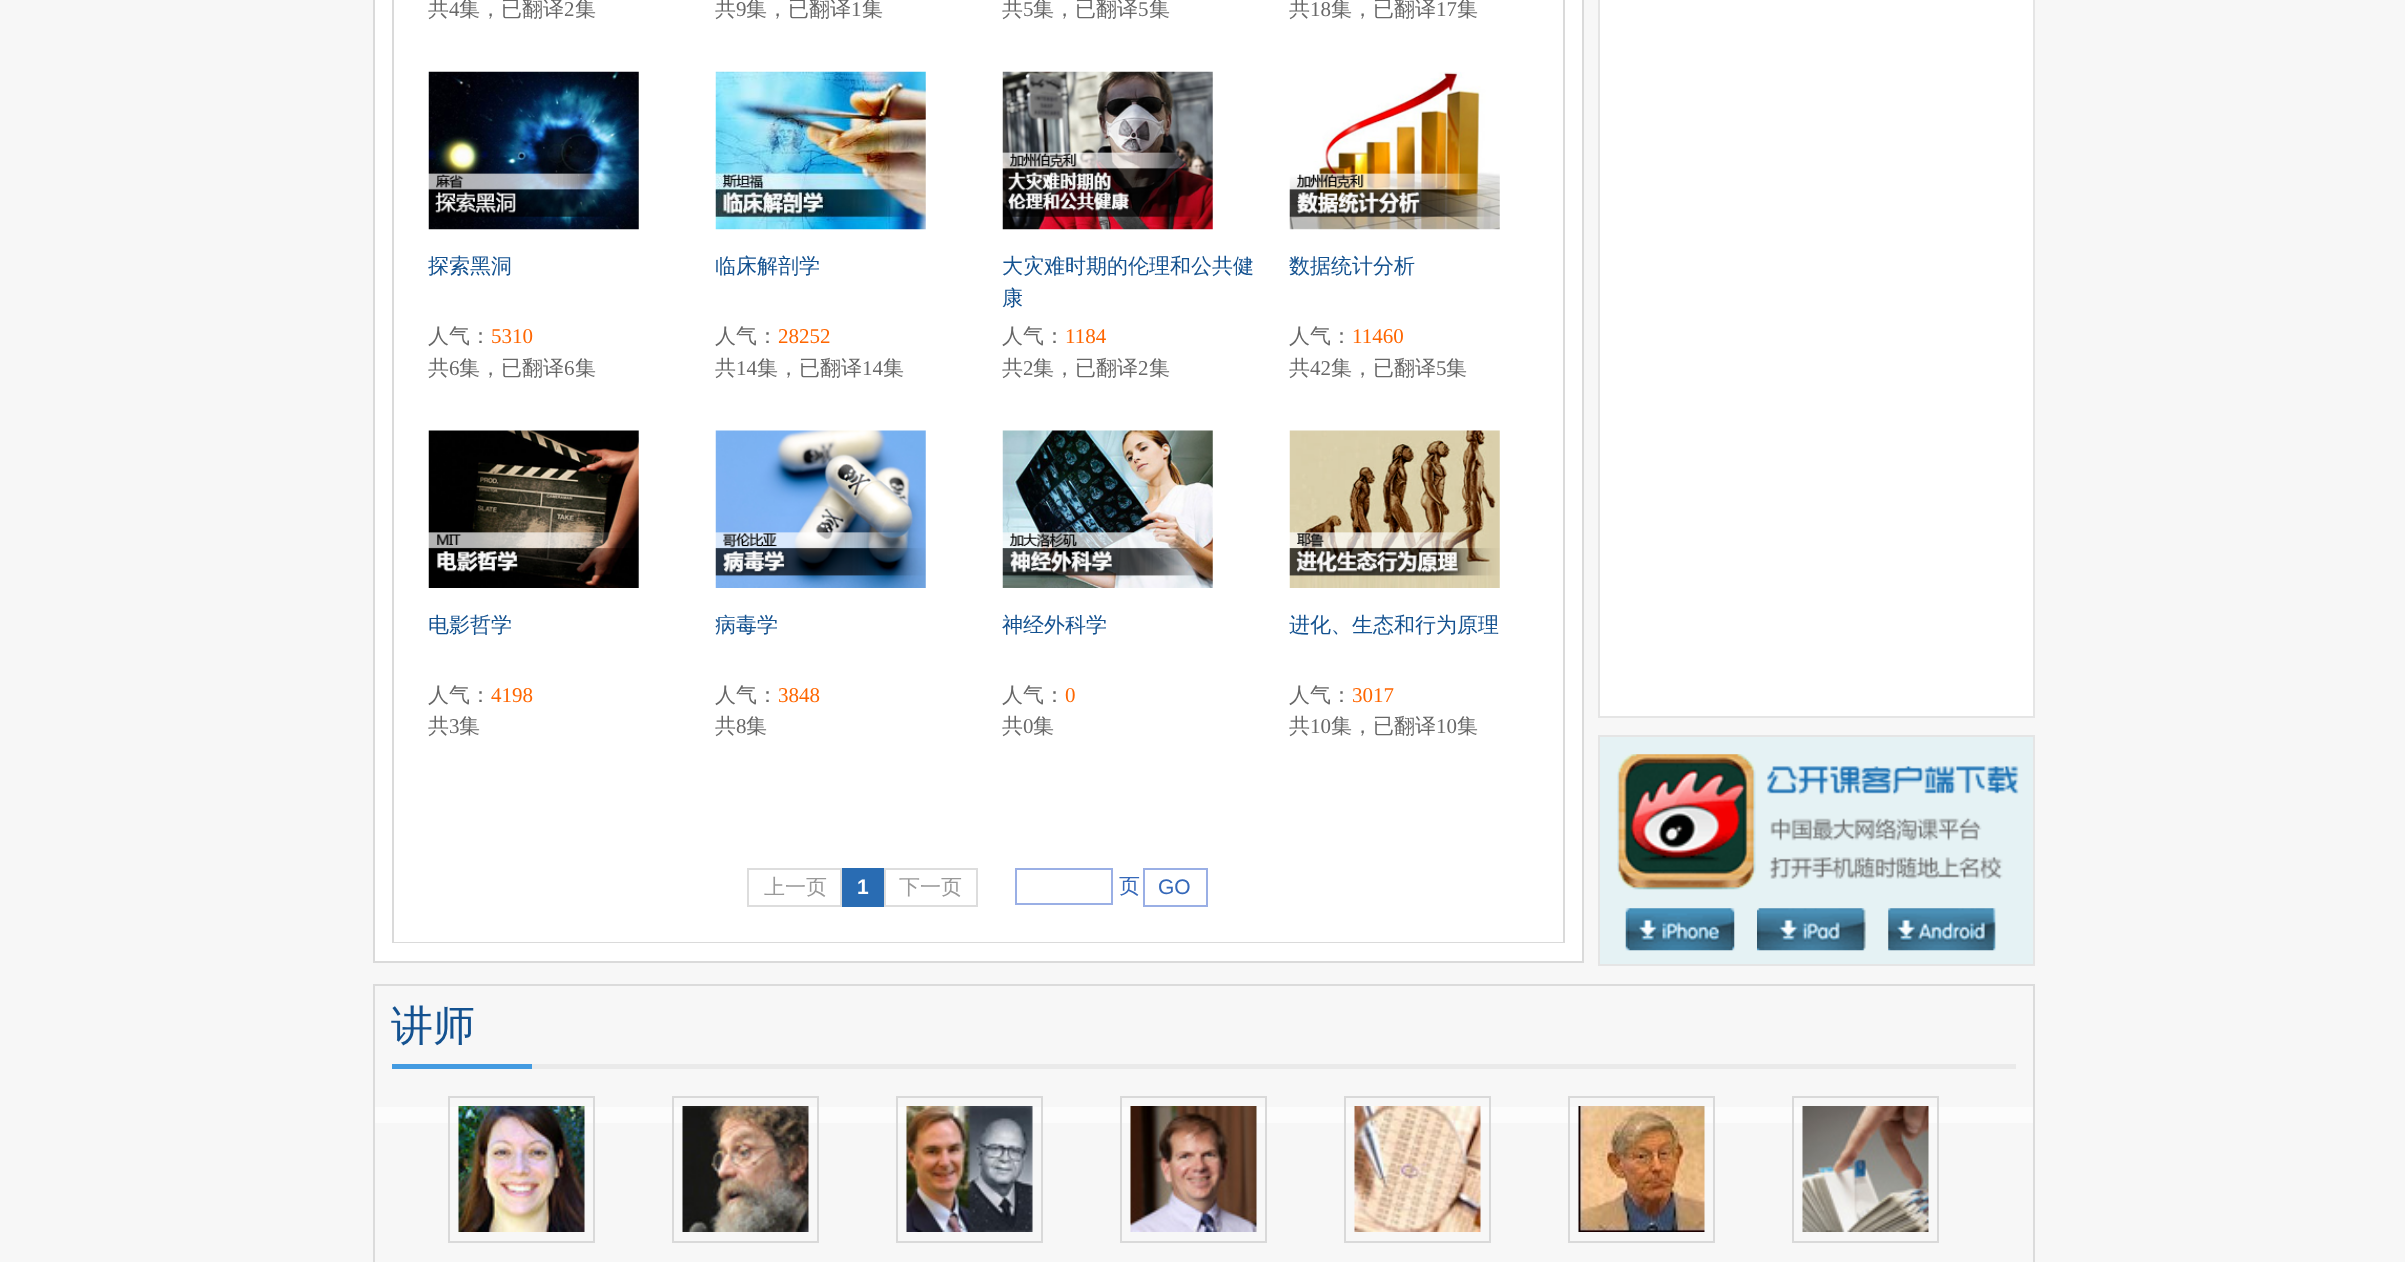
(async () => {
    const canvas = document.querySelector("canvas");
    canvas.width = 2405;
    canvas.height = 1262;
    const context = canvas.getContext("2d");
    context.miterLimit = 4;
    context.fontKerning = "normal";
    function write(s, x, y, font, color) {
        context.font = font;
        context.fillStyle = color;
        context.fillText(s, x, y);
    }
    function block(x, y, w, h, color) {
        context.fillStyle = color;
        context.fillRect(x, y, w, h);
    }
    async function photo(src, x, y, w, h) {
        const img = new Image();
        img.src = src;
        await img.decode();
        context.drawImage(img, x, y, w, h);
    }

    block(0, 0, 2405, 1262, "rgb(247, 247, 247)");
    context.fillStyle = "rgb(255, 255, 255)";
    context.beginPath();
    context.rect(374, -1, 1209, 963);
    context.fill();
    context.strokeStyle = "rgb(218, 218, 218)";
    context.lineWidth = 2;
    context.stroke();
    block(1563, 0, 2, 943, "rgb(218, 218, 218)");
    block(392, 942, 1173, 1, "rgb(218, 218, 218)");
    block(392, 0, 2, 943, "rgb(218, 218, 218)");
    write("共", 428, 16, "500 21px WenQuanYi Zen Hei", "rgb(104, 104, 104)");
    write("4", 449, 16, "21px Liberation Serif", "rgb(104, 104, 104)");
    write("集，已翻译", 459, 16, "500 21px WenQuanYi Zen Hei", "rgb(104, 104, 104)");
    write("2", 564, 16, "21px Liberation Serif", "rgb(104, 104, 104)");
    write("集", 575, 16, "500 21px WenQuanYi Zen Hei", "rgb(104, 104, 104)");
    write("共", 715, 16, "500 21px WenQuanYi Zen Hei", "rgb(104, 104, 104)");
    write("9", 736, 16, "21px Liberation Serif", "rgb(104, 104, 104)");
    write("集，已翻译", 746, 16, "500 21px WenQuanYi Zen Hei", "rgb(104, 104, 104)");
    write("1", 851, 16, "21px Liberation Serif", "rgb(104, 104, 104)");
    write("集", 862, 16, "500 21px WenQuanYi Zen Hei", "rgb(104, 104, 104)");
    write("共", 1002, 16, "500 21px WenQuanYi Zen Hei", "rgb(104, 104, 104)");
    write("5", 1023, 16, "21px Liberation Serif", "rgb(104, 104, 104)");
    write("集，已翻译", 1033, 16, "500 21px WenQuanYi Zen Hei", "rgb(104, 104, 104)");
    write("5", 1138, 16, "21px Liberation Serif", "rgb(104, 104, 104)");
    write("集", 1149, 16, "500 21px WenQuanYi Zen Hei", "rgb(104, 104, 104)");
    write("共", 1289, 16, "500 21px WenQuanYi Zen Hei", "rgb(104, 104, 104)");
    write("18", 1310, 16, "21px Liberation Serif", "rgb(104, 104, 104)");
    write("集，已翻译", 1331, 16, "500 21px WenQuanYi Zen Hei", "rgb(104, 104, 104)");
    write("17", 1436, 16, "21px Liberation Serif", "rgb(104, 104, 104)");
    write("集", 1457, 16, "500 21px WenQuanYi Zen Hei", "rgb(104, 104, 104)");
    await photo("media/1.png", 428, 71, 211, 159);
    write("探索黑洞", 428, 273, "500 21px WenQuanYi Zen Hei", "rgb(20, 82, 144)");
    write("人气：", 428, 343, "500 21px WenQuanYi Zen Hei", "rgb(104, 104, 104)");
    write("5310", 491, 343, "21px Liberation Serif", "rgb(255, 102, 0)");
    write("共", 428, 375, "500 21px WenQuanYi Zen Hei", "rgb(104, 104, 104)");
    write("6", 449, 375, "21px Liberation Serif", "rgb(104, 104, 104)");
    write("集，已翻译", 459, 375, "500 21px WenQuanYi Zen Hei", "rgb(104, 104, 104)");
    write("6", 564, 375, "21px Liberation Serif", "rgb(104, 104, 104)");
    write("集", 575, 375, "500 21px WenQuanYi Zen Hei", "rgb(104, 104, 104)");
    await photo("media/2.png", 715, 71, 211, 159);
    write("临床解剖学", 715, 273, "500 21px WenQuanYi Zen Hei", "rgb(20, 82, 144)");
    write("人气：", 715, 343, "500 21px WenQuanYi Zen Hei", "rgb(104, 104, 104)");
    write("28252", 778, 343, "21px Liberation Serif", "rgb(255, 102, 0)");
    write("共", 715, 375, "500 21px WenQuanYi Zen Hei", "rgb(104, 104, 104)");
    write("14", 736, 375, "21px Liberation Serif", "rgb(104, 104, 104)");
    write("集，已翻译", 757, 375, "500 21px WenQuanYi Zen Hei", "rgb(104, 104, 104)");
    write("14", 862, 375, "21px Liberation Serif", "rgb(104, 104, 104)");
    write("集", 883, 375, "500 21px WenQuanYi Zen Hei", "rgb(104, 104, 104)");
    await photo("media/3.png", 1002, 71, 211, 159);
    write("大灾难时期的伦理和公共健", 1002, 273, "500 21px WenQuanYi Zen Hei", "rgb(20, 82, 144)");
    write("康", 1002, 305, "500 21px WenQuanYi Zen Hei", "rgb(20, 82, 144)");
    write("人气：", 1002, 343, "500 21px WenQuanYi Zen Hei", "rgb(104, 104, 104)");
    write("1184", 1065, 343, "21px Liberation Serif", "rgb(255, 102, 0)");
    write("共", 1002, 375, "500 21px WenQuanYi Zen Hei", "rgb(104, 104, 104)");
    write("2", 1023, 375, "21px Liberation Serif", "rgb(104, 104, 104)");
    write("集，已翻译", 1033, 375, "500 21px WenQuanYi Zen Hei", "rgb(104, 104, 104)");
    write("2", 1138, 375, "21px Liberation Serif", "rgb(104, 104, 104)");
    write("集", 1149, 375, "500 21px WenQuanYi Zen Hei", "rgb(104, 104, 104)");
    await photo("media/4.png", 1289, 71, 211, 159);
    write("数据统计分析", 1289, 273, "500 21px WenQuanYi Zen Hei", "rgb(20, 82, 144)");
    write("人气：", 1289, 343, "500 21px WenQuanYi Zen Hei", "rgb(104, 104, 104)");
    write("11460", 1352, 343, "21px Liberation Serif", "rgb(255, 102, 0)");
    write("共", 1289, 375, "500 21px WenQuanYi Zen Hei", "rgb(104, 104, 104)");
    write("42", 1310, 375, "21px Liberation Serif", "rgb(104, 104, 104)");
    write("集，已翻译", 1331, 375, "500 21px WenQuanYi Zen Hei", "rgb(104, 104, 104)");
    write("5", 1436, 375, "21px Liberation Serif", "rgb(104, 104, 104)");
    write("集", 1446, 375, "500 21px WenQuanYi Zen Hei", "rgb(104, 104, 104)");
    await photo("media/5.png", 428, 430, 211, 158);
    write("电影哲学", 428, 632, "500 21px WenQuanYi Zen Hei", "rgb(20, 82, 144)");
    write("人气：", 428, 702, "500 21px WenQuanYi Zen Hei", "rgb(104, 104, 104)");
    write("4198", 491, 702, "21px Liberation Serif", "rgb(255, 102, 0)");
    write("共", 428, 733, "500 21px WenQuanYi Zen Hei", "rgb(104, 104, 104)");
    write("3", 449, 733, "21px Liberation Serif", "rgb(104, 104, 104)");
    write("集", 459, 733, "500 21px WenQuanYi Zen Hei", "rgb(104, 104, 104)");
    await photo("media/6.png", 715, 430, 211, 158);
    write("病毒学", 715, 632, "500 21px WenQuanYi Zen Hei", "rgb(20, 82, 144)");
    write("人气：", 715, 702, "500 21px WenQuanYi Zen Hei", "rgb(104, 104, 104)");
    write("3848", 778, 702, "21px Liberation Serif", "rgb(255, 102, 0)");
    write("共", 715, 733, "500 21px WenQuanYi Zen Hei", "rgb(104, 104, 104)");
    write("8", 736, 733, "21px Liberation Serif", "rgb(104, 104, 104)");
    write("集", 746, 733, "500 21px WenQuanYi Zen Hei", "rgb(104, 104, 104)");
    await photo("media/7.png", 1002, 430, 211, 158);
    write("神经外科学", 1002, 632, "500 21px WenQuanYi Zen Hei", "rgb(20, 82, 144)");
    write("人气：", 1002, 702, "500 21px WenQuanYi Zen Hei", "rgb(104, 104, 104)");
    write("0", 1065, 702, "21px Liberation Serif", "rgb(255, 102, 0)");
    write("共", 1002, 733, "500 21px WenQuanYi Zen Hei", "rgb(104, 104, 104)");
    write("0", 1023, 733, "21px Liberation Serif", "rgb(104, 104, 104)");
    write("集", 1033, 733, "500 21px WenQuanYi Zen Hei", "rgb(104, 104, 104)");
    await photo("media/8.png", 1289, 430, 211, 158);
    write("进化、生态和行为原理", 1289, 632, "500 21px WenQuanYi Zen Hei", "rgb(20, 82, 144)");
    write("人气：", 1289, 702, "500 21px WenQuanYi Zen Hei", "rgb(104, 104, 104)");
    write("3017", 1352, 702, "21px Liberation Serif", "rgb(255, 102, 0)");
    write("共", 1289, 733, "500 21px WenQuanYi Zen Hei", "rgb(104, 104, 104)");
    write("10", 1310, 733, "21px Liberation Serif", "rgb(104, 104, 104)");
    write("集，已翻译", 1331, 733, "500 21px WenQuanYi Zen Hei", "rgb(104, 104, 104)");
    write("10", 1436, 733, "21px Liberation Serif", "rgb(104, 104, 104)");
    write("集", 1457, 733, "500 21px WenQuanYi Zen Hei", "rgb(104, 104, 104)");
    context.strokeStyle = "rgb(221, 221, 221)";
    context.strokeRect(748, 869, 93, 37);
    write("上一页", 764, 894, "500 21px WenQuanYi Zen Hei", "rgb(153, 153, 153)");
    block(842, 868, 42, 39, "rgb(41, 108, 179)");
    write("1", 857, 894, "bold 21px Liberation Sans", "rgb(255, 255, 255)");
    context.strokeRect(885, 869, 92, 37);
    write("下一页", 899, 894, "500 21px WenQuanYi Zen Hei", "rgb(153, 153, 153)");
    context.strokeStyle = "rgb(154, 175, 229)";
    context.strokeRect(1016, 869, 96, 35);
    write("页", 1119, 893, "500 21px WenQuanYi Zen Hei", "rgb(53, 104, 185)");
    context.strokeRect(1144, 869, 63, 37);
    write("GO", 1158, 894, "21px Liberation Sans", "rgb(53, 104, 185)");
    context.fillStyle = "rgb(255, 255, 255)";
    context.beginPath();
    context.rect(1599, -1, 435, 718);
    context.fill();
    context.strokeStyle = "rgb(229, 229, 229)";
    context.stroke();
    context.fillStyle = "rgb(229, 242, 244)";
    context.beginPath();
    context.rect(1599, 736, 435, 229);
    context.fill();
    context.stroke();
    await photo("media/9.png", 1617, 754, 402, 136);
    await photo("media/10.png", 1625, 908, 110, 43);
    await photo("media/11.png", 1757, 908, 109, 43);
    await photo("media/12.png", 1888, 908, 108, 43);
    block(375, 1107, 1658, 16, "rgb(252, 252, 252)");
    context.strokeStyle = "rgb(219, 219, 219)";
    context.strokeRect(374, 985, 1660, 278);
    block(532, 1064, 1484, 5, "rgb(234, 234, 234)");
    block(392, 1064, 140, 5, "rgb(67, 155, 225)");
    write("讲师", 391, 1040, "500 42px WenQuanYi Zen Hei", "rgb(20, 82, 144)");
    context.strokeStyle = "rgb(217, 217, 217)";
    context.strokeRect(449, 1097, 145, 145);
    await photo("media/13.png", 458, 1106, 127, 126);
    context.strokeRect(673, 1097, 145, 145);
    await photo("media/14.png", 682, 1106, 127, 126);
    context.strokeRect(897, 1097, 145, 145);
    await photo("media/15.png", 906, 1106, 127, 126);
    context.strokeRect(1121, 1097, 145, 145);
    await photo("media/16.png", 1130, 1106, 127, 126);
    context.strokeRect(1345, 1097, 145, 145);
    await photo("media/17.png", 1354, 1106, 127, 126);
    context.strokeRect(1569, 1097, 145, 145);
    await photo("media/18.png", 1578, 1106, 127, 126);
    context.strokeRect(1793, 1097, 145, 145);
    await photo("media/19.png", 1802, 1106, 127, 126);
})();
